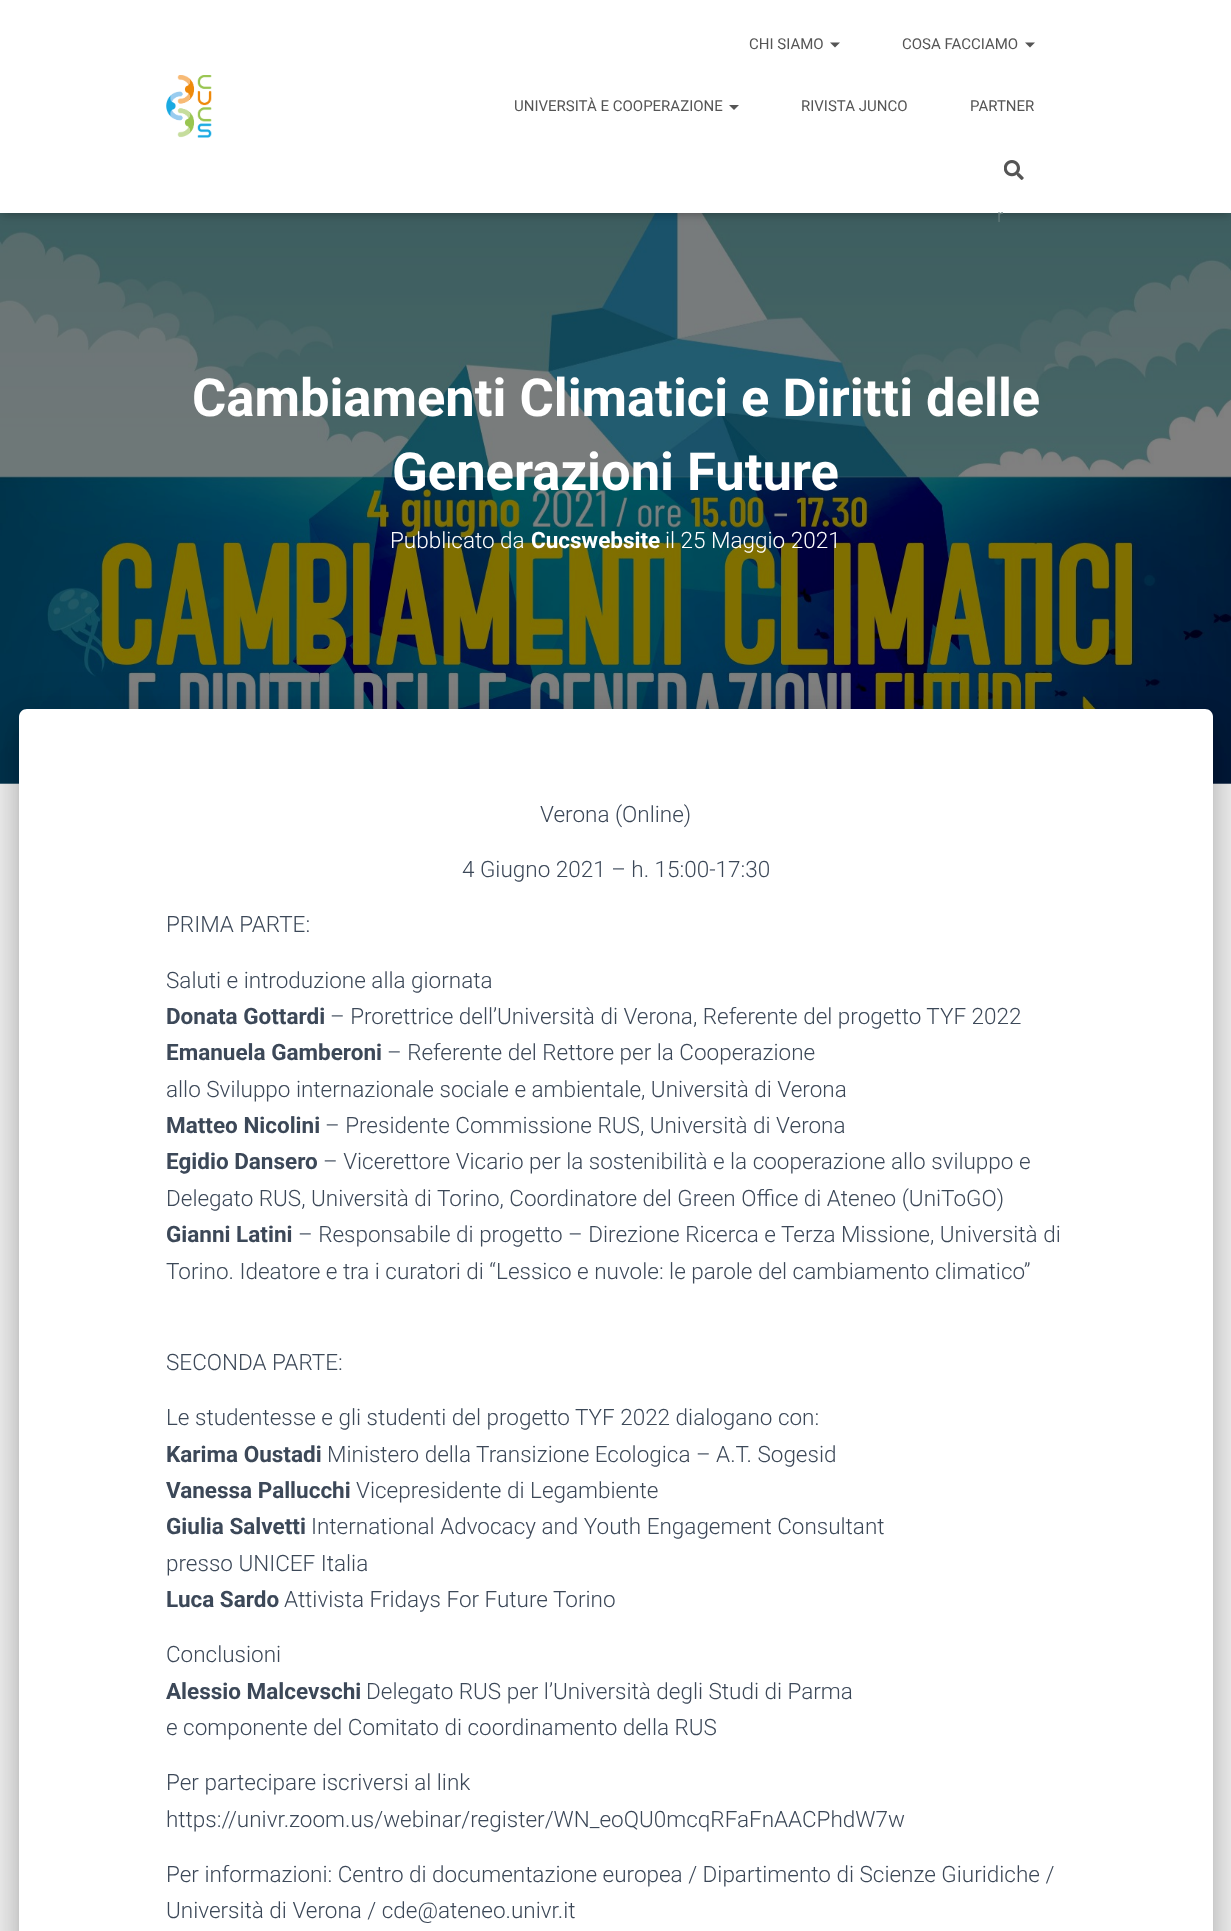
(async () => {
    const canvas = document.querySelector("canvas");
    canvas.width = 1231;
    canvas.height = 1931;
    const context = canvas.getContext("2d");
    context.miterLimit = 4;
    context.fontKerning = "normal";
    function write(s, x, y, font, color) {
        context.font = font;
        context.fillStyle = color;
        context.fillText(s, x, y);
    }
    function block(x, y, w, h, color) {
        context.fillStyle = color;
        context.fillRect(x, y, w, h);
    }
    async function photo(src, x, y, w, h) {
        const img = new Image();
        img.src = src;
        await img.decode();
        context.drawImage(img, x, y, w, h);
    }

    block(0, 0, 1231, 1931, "rgb(242, 242, 242)");
    await photo("media/3.png", 0, 213, 1231, 571);
    context.fillStyle = "rgba(0, 0, 0, 0.1)";
    context.filter = "blur(3px)";
    context.beginPath();
    context.rect(3, 8, 1226, 207);
    context.fill();
    context.filter = "none";
    context.fillStyle = "rgba(0, 0, 0, 0.12)";
    context.filter = "blur(6px)";
    context.beginPath();
    context.rect(0, 1, 1231, 213);
    context.fill();
    context.filter = "none";
    context.fillStyle = "rgba(0, 0, 0, 0.42)";
    context.filter = "blur(6px)";
    context.beginPath();
    context.rect(8, 9, 1216, 197);
    context.fill();
    context.filter = "none";
    block(0, 0, 1231, 213, "rgb(255, 255, 255)");
    await photo("media/1.png", 166, 75, 46, 63);
    write("CHI SIAMO", 749, 49, "15px Roboto", "rgb(85, 85, 85)");
    context.beginPath();
    context.moveTo(830, 42.5);
    context.lineTo(840, 42.5);
    context.lineTo(835, 47.5);
    context.closePath();
    context.fill();
    write("COSA FACCIAMO", 902, 49, "15px Roboto", "rgb(85, 85, 85)");
    context.beginPath();
    context.moveTo(1025, 42.5);
    context.lineTo(1035, 42.5);
    context.lineTo(1030, 47.5);
    context.closePath();
    context.fill();
    write("UNIVERSITÀ E COOPERAZIONE", 514, 111, "15px Roboto", "rgb(85, 85, 85)");
    context.beginPath();
    context.moveTo(729, 105);
    context.lineTo(739, 105);
    context.lineTo(734, 110);
    context.closePath();
    context.fill();
    write("RIVISTA JUNCO", 801, 111, "15px Roboto", "rgb(85, 85, 85)");
    write("PARTNER", 970, 111, "15px Roboto", "rgb(85, 85, 85)");
    await photo("media/2.png", 1004, 160, 20, 20);
    write("r", 997, 222, "18px Roboto", "rgb(90, 115, 116)");
    write("Cambiamenti Climatici e Diritti delle", 192, 416, "bold 52.5px Roboto", "rgb(255, 255, 255)");
    write("Generazioni Future", 392, 490, "bold 52.5px Roboto", "rgb(255, 255, 255)");
    write("Pubblicato da", 390, 548, "300 22.5px Roboto", "rgb(255, 255, 255)");
    write("Cucswebsite", 531, 548, "bold 22.5px Roboto", "rgb(255, 255, 255)");
    write("il 25 Maggio 2021", 665, 548, "300 22.5px Roboto", "rgb(255, 255, 255)");
    context.fillStyle = "rgba(0, 0, 0, 0.2)";
    context.filter = "blur(6px)";
    context.beginPath();
    context.roundRect(25, 725, 1181, 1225, 1);
    context.fill();
    context.filter = "none";
    context.fillStyle = "rgba(0, 0, 0, 0.12)";
    context.filter = "blur(19px)";
    context.beginPath();
    context.roundRect(13, 710, 1206, 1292, 14);
    context.fill();
    context.filter = "none";
    context.fillStyle = "rgba(0, 0, 0, 0.14)";
    context.filter = "blur(15px)";
    context.beginPath();
    context.roundRect(16, 726, 1199, 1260, 10);
    context.fill();
    context.filter = "none";
    context.fillStyle = "rgb(255, 255, 255)";
    context.beginPath();
    context.moveTo(27, 709);
    context.lineTo(1205, 709);
    context.bezierCurveTo(1209.5, 709, 1213, 712.5, 1213, 717);
    context.lineTo(1213, 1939);
    context.lineTo(19, 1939);
    context.lineTo(19, 717);
    context.bezierCurveTo(19, 712.5, 22.5, 709, 27, 709);
    context.closePath();
    context.fill();
    write("Verona (Online)", 540, 822, "300 22.5px Roboto", "rgb(60, 72, 88)");
    write("4 Giugno 2021 – h. 15:00-17:30", 462, 877, "300 22.5px Roboto", "rgb(60, 72, 88)");
    write("PRIMA PARTE:", 166, 932, "300 22.5px Roboto", "rgb(60, 72, 88)");
    write("Saluti e introduzione alla giornata", 166, 988, "300 22.5px Roboto", "rgb(60, 72, 88)");
    write("Donata Gottardi", 166, 1024, "bold 22.5px Roboto", "rgb(60, 72, 88)");
    write("– Prorettrice dell’Università di Verona, Referente del progetto TYF 2022", 330, 1024, "300 22.5px Roboto", "rgb(60, 72, 88)");
    write("Emanuela Gamberoni", 166, 1060, "bold 22.5px Roboto", "rgb(60, 72, 88)");
    write("– Referente del Rettore per la Cooperazione", 387, 1060, "300 22.5px Roboto", "rgb(60, 72, 88)");
    write("allo Sviluppo internazionale sociale e ambientale, Università di Verona", 166, 1097, "300 22.5px Roboto", "rgb(60, 72, 88)");
    write("Matteo Nicolini", 166, 1133, "bold 22.5px Roboto", "rgb(60, 72, 88)");
    write("– Presidente Commissione RUS, Università di Verona", 325, 1133, "300 22.5px Roboto", "rgb(60, 72, 88)");
    write("Egidio Dansero", 166, 1169, "bold 22.5px Roboto", "rgb(60, 72, 88)");
    write("– Vicerettore Vicario per la sostenibilità e la cooperazione allo sviluppo e", 323, 1169, "300 22.5px Roboto", "rgb(60, 72, 88)");
    write("Delegato RUS, Università di Torino, Coordinatore del Green Office di Ateneo (UniToGO)", 166, 1206, "300 22.5px Roboto", "rgb(60, 72, 88)");
    write("Gianni Latini", 166, 1242, "bold 22.5px Roboto", "rgb(60, 72, 88)");
    write("– Responsabile di progetto – Direzione Ricerca e Terza Missione, Università di", 298, 1242, "300 22.5px Roboto", "rgb(60, 72, 88)");
    write("Torino. Ideatore e tra i curatori di “Lessico e nuvole: le parole del cambiamento climatico”", 166, 1279, "300 22.5px Roboto", "rgb(60, 72, 88)");
    write("SECONDA PARTE:", 166, 1370, "300 22.5px Roboto", "rgb(60, 72, 88)");
    write("Le studentesse e gli studenti del progetto TYF 2022 dialogano con:", 166, 1425, "300 22.5px Roboto", "rgb(60, 72, 88)");
    write("Karima Oustadi", 166, 1462, "bold 22.5px Roboto", "rgb(60, 72, 88)");
    write("Ministero della Transizione Ecologica – A.T. Sogesid", 327, 1462, "300 22.5px Roboto", "rgb(60, 72, 88)");
    write("Vanessa Pallucchi", 166, 1498, "bold 22.5px Roboto", "rgb(60, 72, 88)");
    write("Vicepresidente di Legambiente", 356, 1498, "300 22.5px Roboto", "rgb(60, 72, 88)");
    write("Giulia Salvetti", 166, 1534, "bold 22.5px Roboto", "rgb(60, 72, 88)");
    write("International Advocacy and Youth Engagement Consultant", 311, 1534, "300 22.5px Roboto", "rgb(60, 72, 88)");
    write("presso UNICEF Italia", 166, 1571, "300 22.5px Roboto", "rgb(60, 72, 88)");
    write("Luca Sardo", 166, 1607, "bold 22.5px Roboto", "rgb(60, 72, 88)");
    write("Attivista Fridays For Future Torino", 284, 1607, "300 22.5px Roboto", "rgb(60, 72, 88)");
    write("Conclusioni", 166, 1662, "300 22.5px Roboto", "rgb(60, 72, 88)");
    write("Alessio Malcevschi", 166, 1699, "bold 22.5px Roboto", "rgb(60, 72, 88)");
    write("Delegato RUS per l’Università degli Studi di Parma", 366, 1699, "300 22.5px Roboto", "rgb(60, 72, 88)");
    write("e componente del Comitato di coordinamento della RUS", 166, 1735, "300 22.5px Roboto", "rgb(60, 72, 88)");
    write("Per partecipare iscriversi al link", 166, 1790, "300 22.5px Roboto", "rgb(60, 72, 88)");
    write("https://univr.zoom.us/webinar/register/WN_eoQU0mcqRFaFnAACPhdW7w", 166, 1827, "300 22.5px Roboto", "rgb(60, 72, 88)");
    write("Per informazioni: Centro di documentazione europea / Dipartimento di Scienze Giuridiche /", 166, 1882, "300 22.5px Roboto", "rgb(60, 72, 88)");
    write("Università di Verona / cde@ateneo.univr.it", 166, 1918, "300 22.5px Roboto", "rgb(60, 72, 88)");
})();
